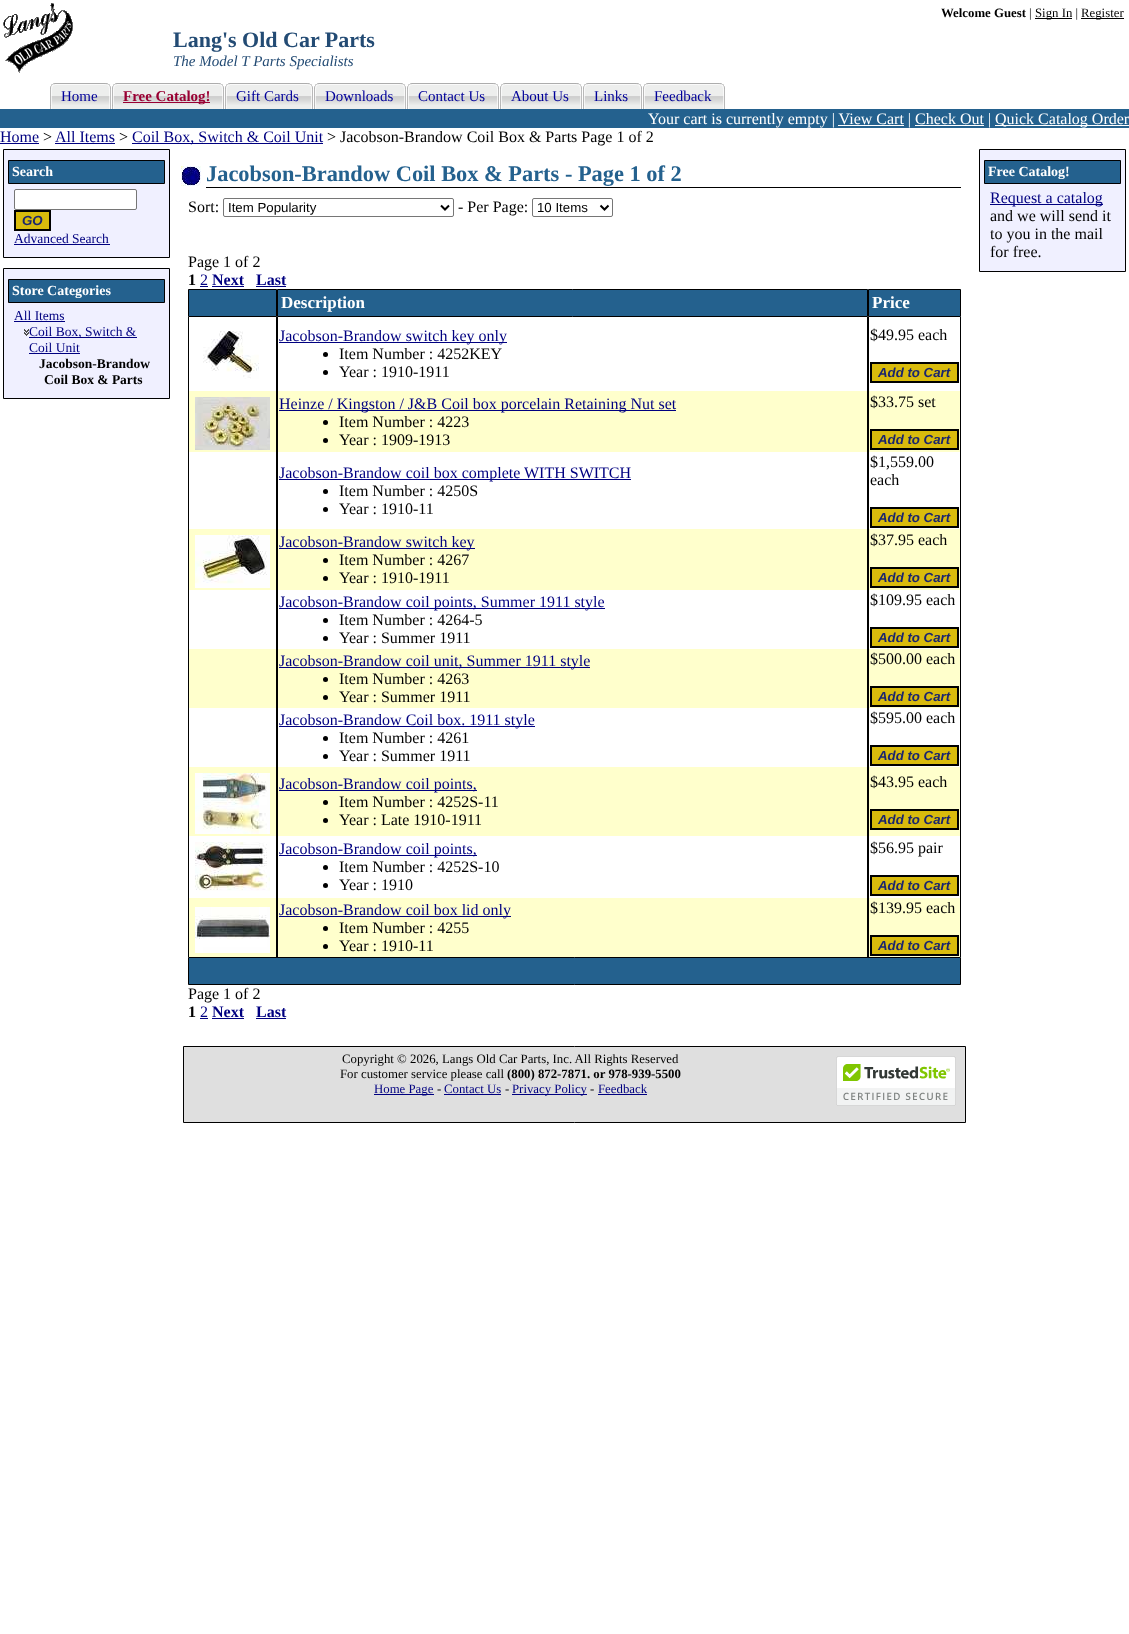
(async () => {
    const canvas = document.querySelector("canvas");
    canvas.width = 1129;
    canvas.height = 1634;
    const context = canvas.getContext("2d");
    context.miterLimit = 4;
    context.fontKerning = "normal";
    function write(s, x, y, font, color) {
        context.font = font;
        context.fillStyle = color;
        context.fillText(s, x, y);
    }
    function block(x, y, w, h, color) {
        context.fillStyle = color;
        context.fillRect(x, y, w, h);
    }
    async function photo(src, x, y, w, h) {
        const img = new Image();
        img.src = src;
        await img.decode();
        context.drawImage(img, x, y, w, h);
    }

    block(0, 0, 1129, 1634, "rgb(255, 255, 255)");
    await photo("media/1.png", 3, 3, 70, 70);
    write("Welcome Guest", 941, 17, "bold 12.8px Liberation Serif", "rgb(0, 0, 0)");
    write("|", 1029, 17, "12.8px Liberation Serif", "rgb(0, 0, 0)");
    block(1035, 18, 37, 1, "rgb(0, 0, 0)");
    write("Sign In |", 1035, 17, "12.8px Liberation Serif", "rgb(0, 0, 0)");
    block(1081, 18, 43, 1, "rgb(0, 0, 0)");
    write("Register", 1081, 17, "12.8px Liberation Serif", "rgb(0, 0, 0)");
    write("Lang's Old Car Parts", 173, 47, "bold 22px Liberation Serif", "rgb(35, 75, 116)");
    write("The Model T Parts Specialists", 173, 66, "italic 15px Liberation Serif", "rgb(35, 75, 116)");
    await photo("media/2.png", 50, 83, 5, 26);
    await photo("media/3.png", 55, 83, 56, 26);
    write("Home", 61, 101, "15px Liberation Serif", "rgb(0, 0, 153)");
    await photo("media/2.png", 112, 83, 5, 26);
    await photo("media/4.png", 117, 83, 107, 26);
    block(123, 102, 87, 1, "rgb(153, 0, 51)");
    write("Free Catalog!", 123, 101, "bold 15px Liberation Serif", "rgb(153, 0, 51)");
    await photo("media/2.png", 225, 83, 5, 26);
    await photo("media/5.png", 230, 83, 83, 26);
    write("Gift Cards", 236, 101, "15px Liberation Serif", "rgb(0, 0, 153)");
    await photo("media/2.png", 314, 83, 5, 26);
    await photo("media/6.png", 319, 83, 87, 26);
    write("Downloads", 325, 101, "15px Liberation Serif", "rgb(0, 0, 153)");
    await photo("media/2.png", 407, 83, 5, 26);
    await photo("media/7.png", 412, 83, 87, 26);
    write("Contact Us", 418, 101, "15px Liberation Serif", "rgb(0, 0, 153)");
    await photo("media/2.png", 500, 83, 5, 26);
    await photo("media/8.png", 505, 83, 77, 26);
    write("About Us", 511, 101, "15px Liberation Serif", "rgb(0, 0, 153)");
    await photo("media/2.png", 583, 83, 5, 26);
    await photo("media/9.png", 588, 83, 54, 26);
    write("Links", 594, 101, "15px Liberation Serif", "rgb(0, 0, 153)");
    await photo("media/2.png", 643, 83, 5, 26);
    await photo("media/10.png", 648, 83, 77, 26);
    write("Feedback", 654, 101, "15px Liberation Serif", "rgb(0, 0, 153)");
    block(0, 109, 1129, 19, "rgb(36, 97, 142)");
    write("Your cart is currently empty | View Cart | Check Out |", 648, 124, "16px Liberation Serif", "rgb(255, 255, 255)");
    block(995, 125, 134, 1, "rgb(255, 255, 255)");
    write("Quick Catalog Order", 995, 124, "16px Liberation Serif", "rgb(255, 255, 255)");
    block(838, 125, 66, 1, "rgb(255, 255, 255)");
    block(915, 125, 69, 1, "rgb(255, 255, 255)");
    write("Home", 0, 142, "16px Liberation Serif", "rgb(0, 0, 128)");
    block(0, 143, 39, 1, "rgb(0, 0, 128)");
    write(">", 43, 142, "16px Liberation Serif", "rgb(0, 0, 0)");
    write("All Items", 55, 142, "16px Liberation Serif", "rgb(0, 0, 128)");
    block(55, 143, 60, 1, "rgb(0, 0, 128)");
    write(">", 119, 142, "16px Liberation Serif", "rgb(0, 0, 0)");
    block(132, 143, 191, 1, "rgb(0, 0, 128)");
    write("Coil Box, Switch & Coil Unit", 132, 142, "16px Liberation Serif", "rgb(0, 0, 128)");
    write("> Jacobson-Brandow Coil Box & Parts Page 1 of 2", 327, 142, "16px Liberation Serif", "rgb(0, 0, 0)");
    context.fillStyle = "rgb(240, 240, 255)";
    context.beginPath();
    context.rect(3.5, 149.5, 166, 108);
    context.fill();
    context.strokeStyle = "rgb(0, 0, 0)";
    context.stroke();
    context.fillStyle = "rgb(36, 97, 142)";
    context.beginPath();
    context.rect(8.5, 160.5, 156, 23);
    context.fill();
    context.stroke();
    write("Search", 12, 176, "bold 14px Liberation Serif", "rgb(255, 255, 255)");
    context.beginPath();
    context.roundRect(14.5, 189.5, 122, 20, 1.5);
    context.fill();
    context.strokeStyle = "rgb(118, 118, 118)";
    context.stroke();
    context.fillStyle = "rgb(217, 187, 12)";
    context.beginPath();
    context.rect(15, 211, 35, 19);
    context.fill();
    context.strokeStyle = "rgb(0, 0, 0)";
    context.lineWidth = 2;
    context.stroke();
    write("GO", 22, 225, "italic bold 13.25px Liberation Sans", "rgb(26, 37, 111)");
    write("Advanced Search", 14, 243, "13.5px Liberation Serif", "rgb(0, 0, 128)");
    block(14, 244, 96, 1, "rgb(0, 0, 128)");
    context.fillStyle = "rgb(240, 240, 255)";
    context.beginPath();
    context.rect(3.5, 268.5, 166, 130);
    context.fill();
    context.lineWidth = 1;
    context.stroke();
    context.fillStyle = "rgb(36, 97, 142)";
    context.beginPath();
    context.rect(8.5, 279.5, 156, 23);
    context.fill();
    context.stroke();
    write("Store Categories", 12, 295, "bold 14px Liberation Serif", "rgb(255, 255, 255)");
    write("All Items", 14, 320, "13.5px Liberation Serif", "rgb(0, 0, 128)");
    block(14, 321, 51, 1, "rgb(0, 0, 128)");
    await photo("media/11.png", 24, 329, 5, 7);
    block(29, 337, 108, 1, "rgb(0, 0, 128)");
    write("Coil Box, Switch &", 29, 336, "13.5px Liberation Serif", "rgb(0, 0, 128)");
    write("Coil Unit", 29, 352, "13.5px Liberation Serif", "rgb(0, 0, 128)");
    block(29, 353, 51, 1, "rgb(0, 0, 128)");
    write("Jacobson-Brandow", 39, 368, "bold 13.5px Liberation Serif", "rgb(0, 0, 0)");
    write("Coil Box & Parts", 44, 384, "bold 13.5px Liberation Serif", "rgb(0, 0, 0)");
    await photo("media/12.png", 181, 166, 20, 20);
    block(206, 187, 755, 1, "rgb(0, 0, 0)");
    write("Jacobson-Brandow Coil Box & Parts - Page 1 of 2", 206, 181, "bold 22.4px Liberation Serif", "rgb(36, 97, 142)");
    write("Sort:", 188, 212, "16px Liberation Serif", "rgb(0, 0, 0)");
    context.beginPath();
    context.roundRect(223.5, 198.5, 230, 18, 1.5);
    context.strokeStyle = "rgb(118, 118, 118)";
    context.stroke();
    context.beginPath();
    context.moveTo(441, 205.5);
    context.lineTo(445, 209.5);
    context.lineTo(449, 205.5);
    context.strokeStyle = "rgb(0, 0, 0)";
    context.lineWidth = 2;
    context.stroke();
    write("Item Popularity", 228, 212, "13.25px Liberation Sans", "rgb(0, 0, 0)");
    write("- Per Page:", 458, 212, "16px Liberation Serif", "rgb(0, 0, 0)");
    context.beginPath();
    context.roundRect(532.5, 198.5, 80, 18, 1.5);
    context.strokeStyle = "rgb(118, 118, 118)";
    context.lineWidth = 1;
    context.stroke();
    context.beginPath();
    context.moveTo(600.5, 205.5);
    context.lineTo(604.5, 209.5);
    context.lineTo(608.5, 205.5);
    context.strokeStyle = "rgb(0, 0, 0)";
    context.lineWidth = 2;
    context.stroke();
    write("10 Items", 537, 212, "13.25px Liberation Sans", "rgb(0, 0, 0)");
    write("Page 1 of 2", 188, 267, "16px Liberation Serif", "rgb(0, 0, 0)");
    write("1", 188, 285, "bold 16px Liberation Serif", "rgb(0, 0, 0)");
    write("2", 200, 285, "16px Liberation Serif", "rgb(0, 0, 128)");
    block(200, 286, 8, 1, "rgb(0, 0, 128)");
    write("Next", 212, 285, "bold 16px Liberation Serif", "rgb(0, 0, 128)");
    block(212, 286, 32, 1, "rgb(0, 0, 128)");
    write("Last", 256, 285, "bold 16px Liberation Serif", "rgb(0, 0, 128)");
    block(256, 286, 30, 1, "rgb(0, 0, 128)");
    context.fillStyle = "rgb(36, 97, 142)";
    context.beginPath();
    context.rect(188.5, 289.5, 88, 27);
    context.fill();
    context.lineWidth = 1;
    context.stroke();
    context.beginPath();
    context.rect(277.5, 289.5, 590, 27);
    context.fill();
    context.stroke();
    write("Description", 281, 308, "bold 17px Liberation Serif", "rgb(255, 255, 255)");
    context.fillStyle = "rgb(36, 97, 142)";
    context.beginPath();
    context.rect(868.5, 289.5, 92, 27);
    context.fill();
    context.stroke();
    write("Price", 872, 308, "bold 17px Liberation Serif", "rgb(255, 255, 255)");
    block(276, 317, 2, 74, "rgb(0, 0, 0)");
    block(188, 317, 1, 640, "rgb(0, 0, 0)");
    await photo("media/13.png", 203, 331, 56, 48);
    block(867, 317, 2, 74, "rgb(0, 0, 0)");
    block(279, 342, 228, 1, "rgb(0, 0, 128)");
    write("Jacobson-Brandow switch key only", 279, 341, "16px Liberation Serif", "rgb(0, 0, 128)");
    context.fillStyle = "rgb(0, 0, 0)";
    context.beginPath();
    context.arc(325.5, 354.5, 2.5, 0, Math.PI * 2);
    context.fill();
    write("Item Number : 4252KEY", 339, 359, "16px Liberation Serif", "rgb(0, 0, 0)");
    context.beginPath();
    context.arc(325.5, 372.5, 2.5, 0, Math.PI * 2);
    context.fill();
    write("Year : 1910-1911", 339, 377, "16px Liberation Serif", "rgb(0, 0, 0)");
    block(960, 317, 1, 640, "rgb(0, 0, 0)");
    write("$49.95 each", 870, 340, "16px Liberation Serif", "rgb(0, 0, 0)");
    context.fillStyle = "rgb(217, 187, 12)";
    context.beginPath();
    context.rect(871, 363, 87, 19);
    context.fill();
    context.lineWidth = 2;
    context.stroke();
    write("Add to Cart", 878, 377, "italic bold 13.25px Liberation Sans", "rgb(26, 37, 111)");
    block(189, 391, 771, 61, "rgb(255, 255, 204)");
    block(276, 391, 2, 61, "rgb(0, 0, 0)");
    await photo("media/14.png", 195, 397, 75, 53);
    block(867, 391, 2, 61, "rgb(0, 0, 0)");
    block(279, 410, 397, 1, "rgb(0, 0, 128)");
    write("Heinze / Kingston / J&B Coil box porcelain Retaining Nut set", 279, 409, "16px Liberation Serif", "rgb(0, 0, 128)");
    context.fillStyle = "rgb(0, 0, 0)";
    context.beginPath();
    context.arc(325.5, 422.5, 2.5, 0, Math.PI * 2);
    context.fill();
    write("Item Number : 4223", 339, 427, "16px Liberation Serif", "rgb(0, 0, 0)");
    context.beginPath();
    context.arc(325.5, 440.5, 2.5, 0, Math.PI * 2);
    context.fill();
    write("Year : 1909-1913", 339, 445, "16px Liberation Serif", "rgb(0, 0, 0)");
    write("$33.75 set", 870, 407, "16px Liberation Serif", "rgb(0, 0, 0)");
    context.fillStyle = "rgb(217, 187, 12)";
    context.beginPath();
    context.rect(871, 430, 87, 19);
    context.fill();
    context.stroke();
    write("Add to Cart", 878, 444, "italic bold 13.25px Liberation Sans", "rgb(26, 37, 111)");
    block(276, 452, 2, 77, "rgb(0, 0, 0)");
    block(867, 452, 2, 77, "rgb(0, 0, 0)");
    block(279, 479, 352, 1, "rgb(0, 0, 128)");
    write("Jacobson-Brandow coil box complete WITH SWITCH", 279, 478, "16px Liberation Serif", "rgb(0, 0, 128)");
    context.fillStyle = "rgb(0, 0, 0)";
    context.beginPath();
    context.arc(325.5, 491.5, 2.5, 0, Math.PI * 2);
    context.fill();
    write("Item Number : 4250S", 339, 496, "16px Liberation Serif", "rgb(0, 0, 0)");
    context.beginPath();
    context.arc(325.5, 509.5, 2.5, 0, Math.PI * 2);
    context.fill();
    write("Year : 1910-11", 339, 514, "16px Liberation Serif", "rgb(0, 0, 0)");
    write("$1,559.00", 870, 467, "16px Liberation Serif", "rgb(0, 0, 0)");
    write("each", 870, 485, "16px Liberation Serif", "rgb(0, 0, 0)");
    context.fillStyle = "rgb(217, 187, 12)";
    context.beginPath();
    context.rect(871, 508, 87, 19);
    context.fill();
    context.stroke();
    write("Add to Cart", 878, 522, "italic bold 13.25px Liberation Sans", "rgb(26, 37, 111)");
    block(189, 529, 771, 61, "rgb(255, 255, 204)");
    block(276, 529, 2, 61, "rgb(0, 0, 0)");
    await photo("media/15.png", 195, 535, 75, 53);
    block(867, 529, 2, 61, "rgb(0, 0, 0)");
    block(279, 548, 196, 1, "rgb(0, 0, 128)");
    write("Jacobson-Brandow switch key", 279, 547, "16px Liberation Serif", "rgb(0, 0, 128)");
    context.fillStyle = "rgb(0, 0, 0)";
    context.beginPath();
    context.arc(325.5, 560.5, 2.5, 0, Math.PI * 2);
    context.fill();
    write("Item Number : 4267", 339, 565, "16px Liberation Serif", "rgb(0, 0, 0)");
    context.beginPath();
    context.arc(325.5, 578.5, 2.5, 0, Math.PI * 2);
    context.fill();
    write("Year : 1910-1911", 339, 583, "16px Liberation Serif", "rgb(0, 0, 0)");
    write("$37.95 each", 870, 545, "16px Liberation Serif", "rgb(0, 0, 0)");
    context.fillStyle = "rgb(217, 187, 12)";
    context.beginPath();
    context.rect(871, 568, 87, 19);
    context.fill();
    context.stroke();
    write("Add to Cart", 878, 582, "italic bold 13.25px Liberation Sans", "rgb(26, 37, 111)");
    block(276, 590, 2, 59, "rgb(0, 0, 0)");
    block(867, 590, 2, 59, "rgb(0, 0, 0)");
    block(279, 608, 326, 1, "rgb(0, 0, 128)");
    write("Jacobson-Brandow coil points, Summer 1911 style", 279, 607, "16px Liberation Serif", "rgb(0, 0, 128)");
    context.fillStyle = "rgb(0, 0, 0)";
    context.beginPath();
    context.arc(325.5, 620.5, 2.5, 0, Math.PI * 2);
    context.fill();
    write("Item Number : 4264-5", 339, 625, "16px Liberation Serif", "rgb(0, 0, 0)");
    context.beginPath();
    context.arc(325.5, 638.5, 2.5, 0, Math.PI * 2);
    context.fill();
    write("Year : Summer 1911", 339, 643, "16px Liberation Serif", "rgb(0, 0, 0)");
    write("$109.95 each", 870, 605, "16px Liberation Serif", "rgb(0, 0, 0)");
    context.fillStyle = "rgb(217, 187, 12)";
    context.beginPath();
    context.rect(871, 628, 87, 19);
    context.fill();
    context.stroke();
    write("Add to Cart", 878, 642, "italic bold 13.25px Liberation Sans", "rgb(26, 37, 111)");
    block(189, 649, 771, 59, "rgb(255, 255, 204)");
    block(276, 649, 2, 59, "rgb(0, 0, 0)");
    block(867, 649, 2, 59, "rgb(0, 0, 0)");
    block(279, 667, 311, 1, "rgb(0, 0, 128)");
    write("Jacobson-Brandow coil unit, Summer 1911 style", 279, 666, "16px Liberation Serif", "rgb(0, 0, 128)");
    context.fillStyle = "rgb(0, 0, 0)";
    context.beginPath();
    context.arc(325.5, 679.5, 2.5, 0, Math.PI * 2);
    context.fill();
    write("Item Number : 4263", 339, 684, "16px Liberation Serif", "rgb(0, 0, 0)");
    context.beginPath();
    context.arc(325.5, 697.5, 2.5, 0, Math.PI * 2);
    context.fill();
    write("Year : Summer 1911", 339, 702, "16px Liberation Serif", "rgb(0, 0, 0)");
    write("$500.00 each", 870, 664, "16px Liberation Serif", "rgb(0, 0, 0)");
    context.fillStyle = "rgb(217, 187, 12)";
    context.beginPath();
    context.rect(871, 687, 87, 19);
    context.fill();
    context.stroke();
    write("Add to Cart", 878, 701, "italic bold 13.25px Liberation Sans", "rgb(26, 37, 111)");
    block(276, 708, 2, 59, "rgb(0, 0, 0)");
    block(867, 708, 2, 59, "rgb(0, 0, 0)");
    block(279, 726, 256, 1, "rgb(0, 0, 128)");
    write("Jacobson-Brandow Coil box. 1911 style", 279, 725, "16px Liberation Serif", "rgb(0, 0, 128)");
    context.fillStyle = "rgb(0, 0, 0)";
    context.beginPath();
    context.arc(325.5, 738.5, 2.5, 0, Math.PI * 2);
    context.fill();
    write("Item Number : 4261", 339, 743, "16px Liberation Serif", "rgb(0, 0, 0)");
    context.beginPath();
    context.arc(325.5, 756.5, 2.5, 0, Math.PI * 2);
    context.fill();
    write("Year : Summer 1911", 339, 761, "16px Liberation Serif", "rgb(0, 0, 0)");
    write("$595.00 each", 870, 723, "16px Liberation Serif", "rgb(0, 0, 0)");
    context.fillStyle = "rgb(217, 187, 12)";
    context.beginPath();
    context.rect(871, 746, 87, 19);
    context.fill();
    context.stroke();
    write("Add to Cart", 878, 760, "italic bold 13.25px Liberation Sans", "rgb(26, 37, 111)");
    block(189, 767, 771, 69, "rgb(255, 255, 204)");
    block(276, 767, 2, 69, "rgb(0, 0, 0)");
    await photo("media/16.png", 195, 773, 75, 61);
    block(867, 767, 2, 69, "rgb(0, 0, 0)");
    block(279, 790, 198, 1, "rgb(0, 0, 128)");
    write("Jacobson-Brandow coil points,", 279, 789, "16px Liberation Serif", "rgb(0, 0, 128)");
    context.fillStyle = "rgb(0, 0, 0)";
    context.beginPath();
    context.arc(325.5, 802.5, 2.5, 0, Math.PI * 2);
    context.fill();
    write("Item Number : 4252S-11", 339, 807, "16px Liberation Serif", "rgb(0, 0, 0)");
    context.beginPath();
    context.arc(325.5, 820.5, 2.5, 0, Math.PI * 2);
    context.fill();
    write("Year : Late 1910-1911", 339, 825, "16px Liberation Serif", "rgb(0, 0, 0)");
    write("$43.95 each", 870, 787, "16px Liberation Serif", "rgb(0, 0, 0)");
    context.fillStyle = "rgb(217, 187, 12)";
    context.beginPath();
    context.rect(871, 810, 87, 19);
    context.fill();
    context.stroke();
    write("Add to Cart", 878, 824, "italic bold 13.25px Liberation Sans", "rgb(26, 37, 111)");
    block(276, 836, 2, 62, "rgb(0, 0, 0)");
    await photo("media/17.png", 195, 842, 75, 49);
    block(867, 836, 2, 62, "rgb(0, 0, 0)");
    block(279, 855, 198, 1, "rgb(0, 0, 128)");
    write("Jacobson-Brandow coil points,", 279, 854, "16px Liberation Serif", "rgb(0, 0, 128)");
    context.fillStyle = "rgb(0, 0, 0)";
    context.beginPath();
    context.arc(325.5, 867.5, 2.5, 0, Math.PI * 2);
    context.fill();
    write("Item Number : 4252S-10", 339, 872, "16px Liberation Serif", "rgb(0, 0, 0)");
    context.beginPath();
    context.arc(325.5, 885.5, 2.5, 0, Math.PI * 2);
    context.fill();
    write("Year : 1910", 339, 890, "16px Liberation Serif", "rgb(0, 0, 0)");
    write("$56.95 pair", 870, 853, "16px Liberation Serif", "rgb(0, 0, 0)");
    context.fillStyle = "rgb(217, 187, 12)";
    context.beginPath();
    context.rect(871, 876, 87, 19);
    context.fill();
    context.stroke();
    write("Add to Cart", 878, 890, "italic bold 13.25px Liberation Sans", "rgb(26, 37, 111)");
    block(189, 898, 771, 59, "rgb(255, 255, 204)");
    block(276, 898, 2, 59, "rgb(0, 0, 0)");
    await photo("media/18.png", 195, 907, 75, 46);
    block(867, 898, 2, 59, "rgb(0, 0, 0)");
    block(279, 916, 232, 1, "rgb(0, 0, 128)");
    write("Jacobson-Brandow coil box lid only", 279, 915, "16px Liberation Serif", "rgb(0, 0, 128)");
    context.fillStyle = "rgb(0, 0, 0)";
    context.beginPath();
    context.arc(325.5, 928.5, 2.5, 0, Math.PI * 2);
    context.fill();
    write("Item Number : 4255", 339, 933, "16px Liberation Serif", "rgb(0, 0, 0)");
    context.beginPath();
    context.arc(325.5, 946.5, 2.5, 0, Math.PI * 2);
    context.fill();
    write("Year : 1910-11", 339, 951, "16px Liberation Serif", "rgb(0, 0, 0)");
    write("$139.95 each", 870, 913, "16px Liberation Serif", "rgb(0, 0, 0)");
    context.fillStyle = "rgb(217, 187, 12)";
    context.beginPath();
    context.rect(871, 936, 87, 19);
    context.fill();
    context.stroke();
    write("Add to Cart", 878, 950, "italic bold 13.25px Liberation Sans", "rgb(26, 37, 111)");
    context.fillStyle = "rgb(36, 97, 142)";
    context.beginPath();
    context.rect(188.5, 957.5, 772, 27);
    context.fill();
    context.lineWidth = 1;
    context.stroke();
    write("Page 1 of 2", 188, 999, "16px Liberation Serif", "rgb(0, 0, 0)");
    write("1", 188, 1017, "bold 16px Liberation Serif", "rgb(0, 0, 0)");
    write("2", 200, 1017, "16px Liberation Serif", "rgb(0, 0, 128)");
    block(200, 1018, 8, 1, "rgb(0, 0, 128)");
    write("Next", 212, 1017, "bold 16px Liberation Serif", "rgb(0, 0, 128)");
    block(212, 1018, 32, 1, "rgb(0, 0, 128)");
    write("Last", 256, 1017, "bold 16px Liberation Serif", "rgb(0, 0, 128)");
    block(256, 1018, 30, 1, "rgb(0, 0, 128)");
    context.fillStyle = "rgb(240, 240, 255)";
    context.beginPath();
    context.rect(979.5, 149.5, 146, 122);
    context.fill();
    context.stroke();
    context.fillStyle = "rgb(36, 97, 142)";
    context.beginPath();
    context.rect(984.5, 160.5, 136, 23);
    context.fill();
    context.stroke();
    write("Free Catalog!", 988, 176, "bold 14px Liberation Serif", "rgb(255, 255, 255)");
    block(990, 204, 113, 1, "rgb(0, 0, 128)");
    write("Request a catalog", 990, 203, "16px Liberation Serif", "rgb(0, 0, 128)");
    write("and we will send it", 990, 221, "16px Liberation Serif", "rgb(0, 0, 0)");
    write("to you in the mail", 990, 239, "16px Liberation Serif", "rgb(0, 0, 0)");
    write("for free.", 990, 257, "16px Liberation Serif", "rgb(0, 0, 0)");
    context.fillStyle = "rgb(223, 223, 223)";
    context.beginPath();
    context.rect(183.5, 1046.5, 782, 76);
    context.fill();
    context.stroke();
    write("Copyright © 2026, Langs Old Car Parts, Inc. All Rights Reserved", 342, 1063, "12.8px Liberation Serif", "rgb(0, 0, 0)");
    await photo("media/19.png", 836, 1056, 120, 50);
    write("For customer service please call", 340, 1078, "12.8px Liberation Serif", "rgb(0, 0, 0)");
    write("(800) 872-7871. or 978-939-5500", 507, 1078, "bold 12.8px Liberation Serif", "rgb(0, 0, 0)");
    block(374, 1094, 60, 1, "rgb(0, 0, 128)");
    write("Home Page", 374, 1093, "12.8px Liberation Serif", "rgb(0, 0, 128)");
    write("-", 437, 1093, "12.8px Liberation Serif", "rgb(0, 0, 0)");
    write("Contact Us", 444, 1093, "12.8px Liberation Serif", "rgb(0, 0, 128)");
    block(444, 1094, 57, 1, "rgb(0, 0, 128)");
    write("-", 505, 1093, "12.8px Liberation Serif", "rgb(0, 0, 0)");
    block(512, 1094, 75, 1, "rgb(0, 0, 128)");
    write("Privacy Policy", 512, 1093, "12.8px Liberation Serif", "rgb(0, 0, 128)");
    write("-", 590, 1093, "12.8px Liberation Serif", "rgb(0, 0, 0)");
    write("Feedback", 598, 1093, "12.8px Liberation Serif", "rgb(0, 0, 128)");
    block(598, 1094, 49, 1, "rgb(0, 0, 128)");
})();
